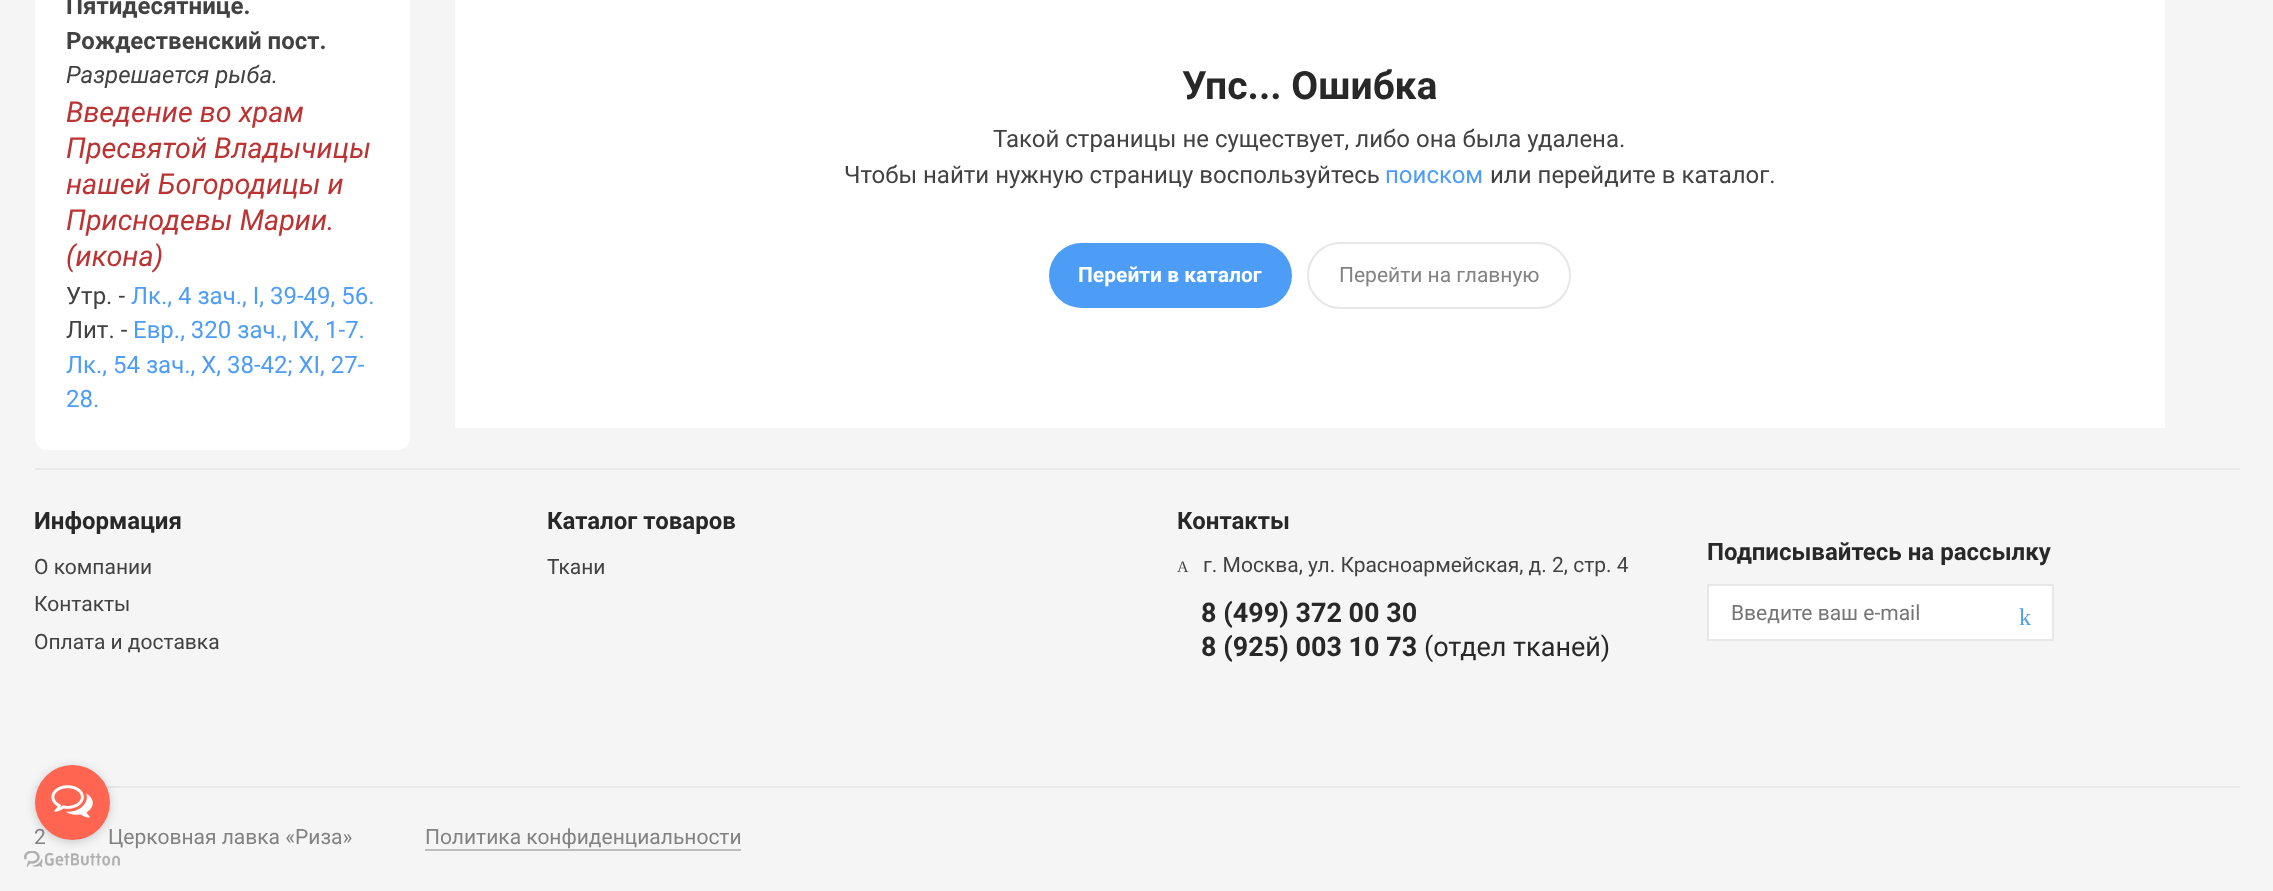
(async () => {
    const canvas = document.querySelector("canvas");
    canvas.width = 2273;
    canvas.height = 891;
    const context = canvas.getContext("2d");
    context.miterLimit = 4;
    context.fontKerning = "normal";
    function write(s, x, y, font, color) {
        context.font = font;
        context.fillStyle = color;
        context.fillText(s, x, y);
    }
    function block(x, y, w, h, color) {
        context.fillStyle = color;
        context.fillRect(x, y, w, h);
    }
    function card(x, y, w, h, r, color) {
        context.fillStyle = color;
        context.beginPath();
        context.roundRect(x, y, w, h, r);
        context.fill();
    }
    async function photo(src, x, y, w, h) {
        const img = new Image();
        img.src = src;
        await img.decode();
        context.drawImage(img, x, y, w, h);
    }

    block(0, 0, 2273, 891, "rgb(245, 245, 245)");
    card(35, -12, 375, 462, 12, "rgb(255, 255, 255)");
    write("Пятидесятнице.", 66, 14, "bold 24px Roboto", "rgb(66, 66, 66)");
    write("Рождественский пост.", 66, 49, "bold 24px Roboto", "rgb(66, 66, 66)");
    write("Разрешается рыба.", 66, 83, "italic 24px Roboto", "rgb(66, 66, 66)");
    write("Введение во храм", 66, 122, "italic 28.75px Roboto", "rgb(187, 51, 51)");
    write("Пресвятой Владычицы", 66, 158, "italic 28.75px Roboto", "rgb(187, 51, 51)");
    write("нашей Богородицы и", 66, 194, "italic 28.75px Roboto", "rgb(187, 51, 51)");
    write("Приснодевы Марии.", 66, 230, "italic 28.75px Roboto", "rgb(187, 51, 51)");
    write("(икона)", 66, 266, "italic 28.75px Roboto", "rgb(187, 51, 51)");
    write("Утр. -", 66, 304, "24px Roboto", "rgb(66, 66, 66)");
    write("Лк., 4 зач., I, 39-49, 56.", 131, 304, "24px Roboto", "rgb(77, 156, 246)");
    write("Лит. -", 66, 338, "24px Roboto", "rgb(66, 66, 66)");
    write("Евр., 320 зач., IX, 1-7.", 133, 338, "24px Roboto", "rgb(77, 156, 246)");
    write("Лк., 54 зач., X, 38-42; XI, 27-", 66, 373, "24px Roboto", "rgb(77, 156, 246)");
    write("28.", 66, 407, "24px Roboto", "rgb(77, 156, 246)");
    block(455, 0, 1710, 428, "rgb(255, 255, 255)");
    write("Упс... Ошибка", 1182, 99, "bold 39px Roboto", "rgb(40, 40, 40)");
    write("Такой страницы не существует, либо она была удалена.", 993, 147, "24px Roboto", "rgb(66, 66, 66)");
    write("Чтобы найти нужную страницу воспользуйтесь", 844, 183, "24px Roboto", "rgb(66, 66, 66)");
    write("поиском", 1385, 183, "24px Roboto", "rgb(77, 156, 246)");
    write("или перейдите в каталог.", 1490, 183, "24px Roboto", "rgb(66, 66, 66)");
    card(1049, 243, 243, 65, 32.5, "rgb(77, 156, 246)");
    write("Перейти в каталог", 1078, 282, "bold 21px Roboto", "rgb(255, 255, 255)");
    context.beginPath();
    context.roundRect(1308, 243, 262, 65, 32.5);
    context.strokeStyle = "rgb(231, 231, 231)";
    context.lineWidth = 2;
    context.stroke();
    write("Перейти на главную", 1339, 282, "21px Roboto", "rgb(130, 130, 130)");
    block(35, 468, 2205, 2, "rgb(231, 231, 231)");
    write("Информация", 34, 529, "bold 24px Roboto", "rgb(40, 40, 40)");
    write("О компании", 34, 574, "21px Roboto", "rgb(66, 66, 66)");
    write("Контакты", 34, 611, "21px Roboto", "rgb(66, 66, 66)");
    write("Оплата и доставка", 34, 649, "21px Roboto", "rgb(66, 66, 66)");
    write("Каталог товаров", 547, 529, "bold 24px Roboto", "rgb(40, 40, 40)");
    write("Ткани", 547, 574, "21px Roboto", "rgb(66, 66, 66)");
    write("Контакты", 1177, 529, "bold 24px Roboto", "rgb(40, 40, 40)");
    write("A", 1177, 572, "16px Liberation Serif", "rgb(66, 66, 66)");
    write("г. Москва, ул. Красноармейская, д. 2, стр. 4", 1203, 572, "21px Roboto", "rgb(66, 66, 66)");
    write("8 (499) 372 00 30", 1201, 622, "bold 27px Roboto", "rgb(40, 40, 40)");
    write("8 (925) 003 10 73", 1201, 656, "bold 27px Roboto", "rgb(40, 40, 40)");
    write("(отдел тканей)", 1424, 656, "27px Roboto", "rgb(40, 40, 40)");
    write("Подписывайтесь на рассылку", 1707, 560, "bold 24px Roboto", "rgb(40, 40, 40)");
    context.fillStyle = "rgb(255, 255, 255)";
    context.beginPath();
    context.rect(1708, 585, 345, 55);
    context.fill();
    context.stroke();
    write("Введите ваш e-mail", 1731, 620, "21px Roboto", "rgb(117, 117, 117)");
    write("k", 2019, 625, "24px Liberation Serif", "rgb(77, 156, 246)");
    block(35, 786, 2205, 2, "rgb(231, 231, 231)");
    write("2", 34, 844, "21px Roboto", "rgb(130, 130, 130)");
    write("Церковная лавка «Риза»", 108, 844, "21px Roboto", "rgb(130, 130, 130)");
    write("Политика конфиденциальности", 425, 844, "21px Roboto", "rgb(130, 130, 130)");
    block(425, 849, 316, 2, "rgb(189, 189, 189)");
    await photo("media/2.png", 24, 851, 96, 16);
    context.fillStyle = "rgba(136, 136, 136, 0.4)";
    context.filter = "blur(5px)";
    context.beginPath();
    context.roundRect(35, 767, 75, 75, 37.5);
    context.fill();
    context.filter = "none";
    context.fillStyle = "rgb(255, 101, 80)";
    context.beginPath();
    context.arc(72.5, 802.5, 37.5, 0, Math.PI * 2);
    context.fill();
    await photo("media/1.png", 51, 785, 42, 33);
})();
